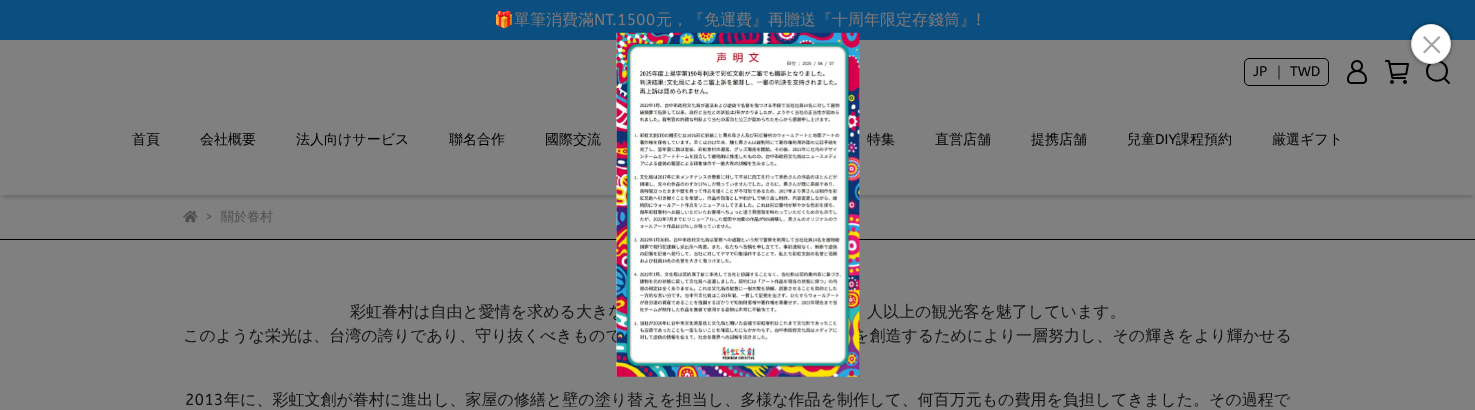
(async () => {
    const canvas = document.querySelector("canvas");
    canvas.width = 1475;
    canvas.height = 410;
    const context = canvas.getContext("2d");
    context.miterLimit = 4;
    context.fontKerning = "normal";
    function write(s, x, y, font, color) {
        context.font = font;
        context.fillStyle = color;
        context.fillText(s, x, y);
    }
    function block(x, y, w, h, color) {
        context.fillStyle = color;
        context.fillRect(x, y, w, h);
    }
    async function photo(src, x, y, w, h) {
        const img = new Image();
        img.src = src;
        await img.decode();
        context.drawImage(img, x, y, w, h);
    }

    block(0, 0, 1475, 410, "rgb(128, 128, 128)");
    block(0, 0, 1475, 40, "rgb(10, 79, 128)");
    write("🎁", 494, 25, "16px Noto Color Emoji", "rgb(128, 121, 121)");
    write("單筆消費滿", 514, 25, "500 16px WenQuanYi Zen Hei", "rgb(128, 121, 121)");
    write("NT.1500", 594, 25, "16px ABeeZee", "rgb(128, 121, 121)");
    write("元，『免運費』再贈送『十周年限定存錢筒』", 656, 25, "500 16px WenQuanYi Zen Hei", "rgb(128, 121, 121)");
    write("!", 976, 25, "16px ABeeZee", "rgb(128, 121, 121)");
    context.beginPath();
    context.roundRect(1244.5, 58.5, 84, 27, 4.5);
    context.strokeStyle = "rgb(0, 0, 0)";
    context.stroke();
    write("JP", 1253, 76, "14px ABeeZee", "rgb(0, 0, 0)");
    write("｜", 1272, 76, "500 14px WenQuanYi Zen Hei", "rgb(0, 0, 0)");
    write("TWD", 1290, 76, "14px ABeeZee", "rgb(0, 0, 0)");
    await photo("media/1.png", 1347, 60, 20, 24);
    await photo("media/2.png", 1385, 60, 24, 24);
    context.beginPath();
    context.moveTo(1447, 71);
    context.bezierCurveTo(1447, 84, 1427, 84, 1427, 71);
    context.bezierCurveTo(1427, 58, 1447, 58, 1447, 71);
    context.closePath();
    context.moveTo(1445, 79);
    context.lineTo(1449, 83);
    context.lineWidth = 2;
    context.lineCap = "round";
    context.lineJoin = "round";
    context.stroke();
    context.save();
    context.beginPath();
    context.rect(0, 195, 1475, 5);
    context.clip();
    context.fillStyle = "rgba(0, 0, 0, 0.2)";
    context.filter = "blur(2px)";
    context.beginPath();
    context.rect(2, 127, 1471, 70);
    context.fill();
    context.filter = "none";
    context.restore();
    write("首頁", 132, 144, "500 14px WenQuanYi Zen Hei", "rgb(0, 0, 0)");
    write("会社概要", 200, 144, "500 14px WenQuanYi Zen Hei", "rgb(0, 0, 0)");
    write("法人向けサービス", 296, 144, "500 14px WenQuanYi Zen Hei", "rgb(0, 0, 0)");
    write("聯名合作", 449, 144, "500 14px WenQuanYi Zen Hei", "rgb(0, 0, 0)");
    write("國際交流", 545, 144, "500 14px WenQuanYi Zen Hei", "rgb(0, 0, 0)");
    write("特集", 867, 144, "500 14px WenQuanYi Zen Hei", "rgb(0, 0, 0)");
    write("直営店舗", 935, 144, "500 14px WenQuanYi Zen Hei", "rgb(0, 0, 0)");
    write("提携店舗", 1031, 144, "500 14px WenQuanYi Zen Hei", "rgb(0, 0, 0)");
    write("兒童", 1127, 144, "500 14px WenQuanYi Zen Hei", "rgb(0, 0, 0)");
    write("DIY", 1155, 144, "14px ABeeZee", "rgb(0, 0, 0)");
    write("課程預約", 1176, 144, "500 14px WenQuanYi Zen Hei", "rgb(0, 0, 0)");
    write("厳選ギフト", 1272, 144, "500 14px WenQuanYi Zen Hei", "rgb(0, 0, 0)");
    block(0, 239, 1475, 1, "rgb(0, 0, 0)");
    write("彩虹眷村は自由と愛情を求める大きな", 350, 317, "500 16px WenQuanYi Zen Hei", "rgb(17, 19, 21)");
    write("このような栄光は、台湾の誇りであり、守り抜くべきもので", 183, 341, "500 16px WenQuanYi Zen Hei", "rgb(17, 19, 21)");
    write("を創造するためにより一層努力し、その輝きをより輝かせる", 853, 341, "500 16px WenQuanYi Zen Hei", "rgb(17, 19, 21)");
    await photo("media/3.png", 616, 32, 244, 345);
    context.fillStyle = "rgba(0, 0, 0, 0.5)";
    context.filter = "blur(2px)";
    context.beginPath();
    context.roundRect(1411, 24, 40, 40, 20);
    context.fill();
    context.filter = "none";
    context.fillStyle = "rgb(255, 255, 255)";
    context.beginPath();
    context.arc(1431, 44, 19.5, 0, Math.PI * 2);
    context.fill();
    context.strokeStyle = "rgb(226, 226, 226)";
    context.lineWidth = 1;
    context.stroke();
    context.fillStyle = "rgb(163, 163, 163)";
    context.beginPath();
    context.moveTo(1424.5, 36);
    context.lineTo(1440.5, 52);
    context.lineTo(1439, 53.5);
    context.lineTo(1423, 37.5);
    context.closePath();
    context.fill();
    context.beginPath();
    context.moveTo(1423, 52);
    context.lineTo(1439, 36);
    context.lineTo(1440.5, 37.5);
    context.lineTo(1424.5, 53.5);
    context.closePath();
    context.fill();
    await photo("media/4.png", 183, 210, 15, 13);
    write(">", 205, 221, "13px ABeeZee", "rgb(77, 79, 81)");
    write("關於眷村", 221, 221, "500 13px WenQuanYi Zen Hei", "rgb(77, 79, 81)");
    write("人以上の観光客を魅了しています。", 867, 317, "500 16px WenQuanYi Zen Hei", "rgb(17, 19, 21)");
    write("2013", 185, 405, "16px ABeeZee", "rgb(17, 19, 21)");
    write("年に、彩虹文創が眷村に進出し、家屋の修繕と壁の塗り替えを担当し、多様な作品を制作して、何百万元もの費用を負担してきました。その過程で", 224, 405, "500 16px WenQuanYi Zen Hei", "rgb(17, 19, 21)");
})();
